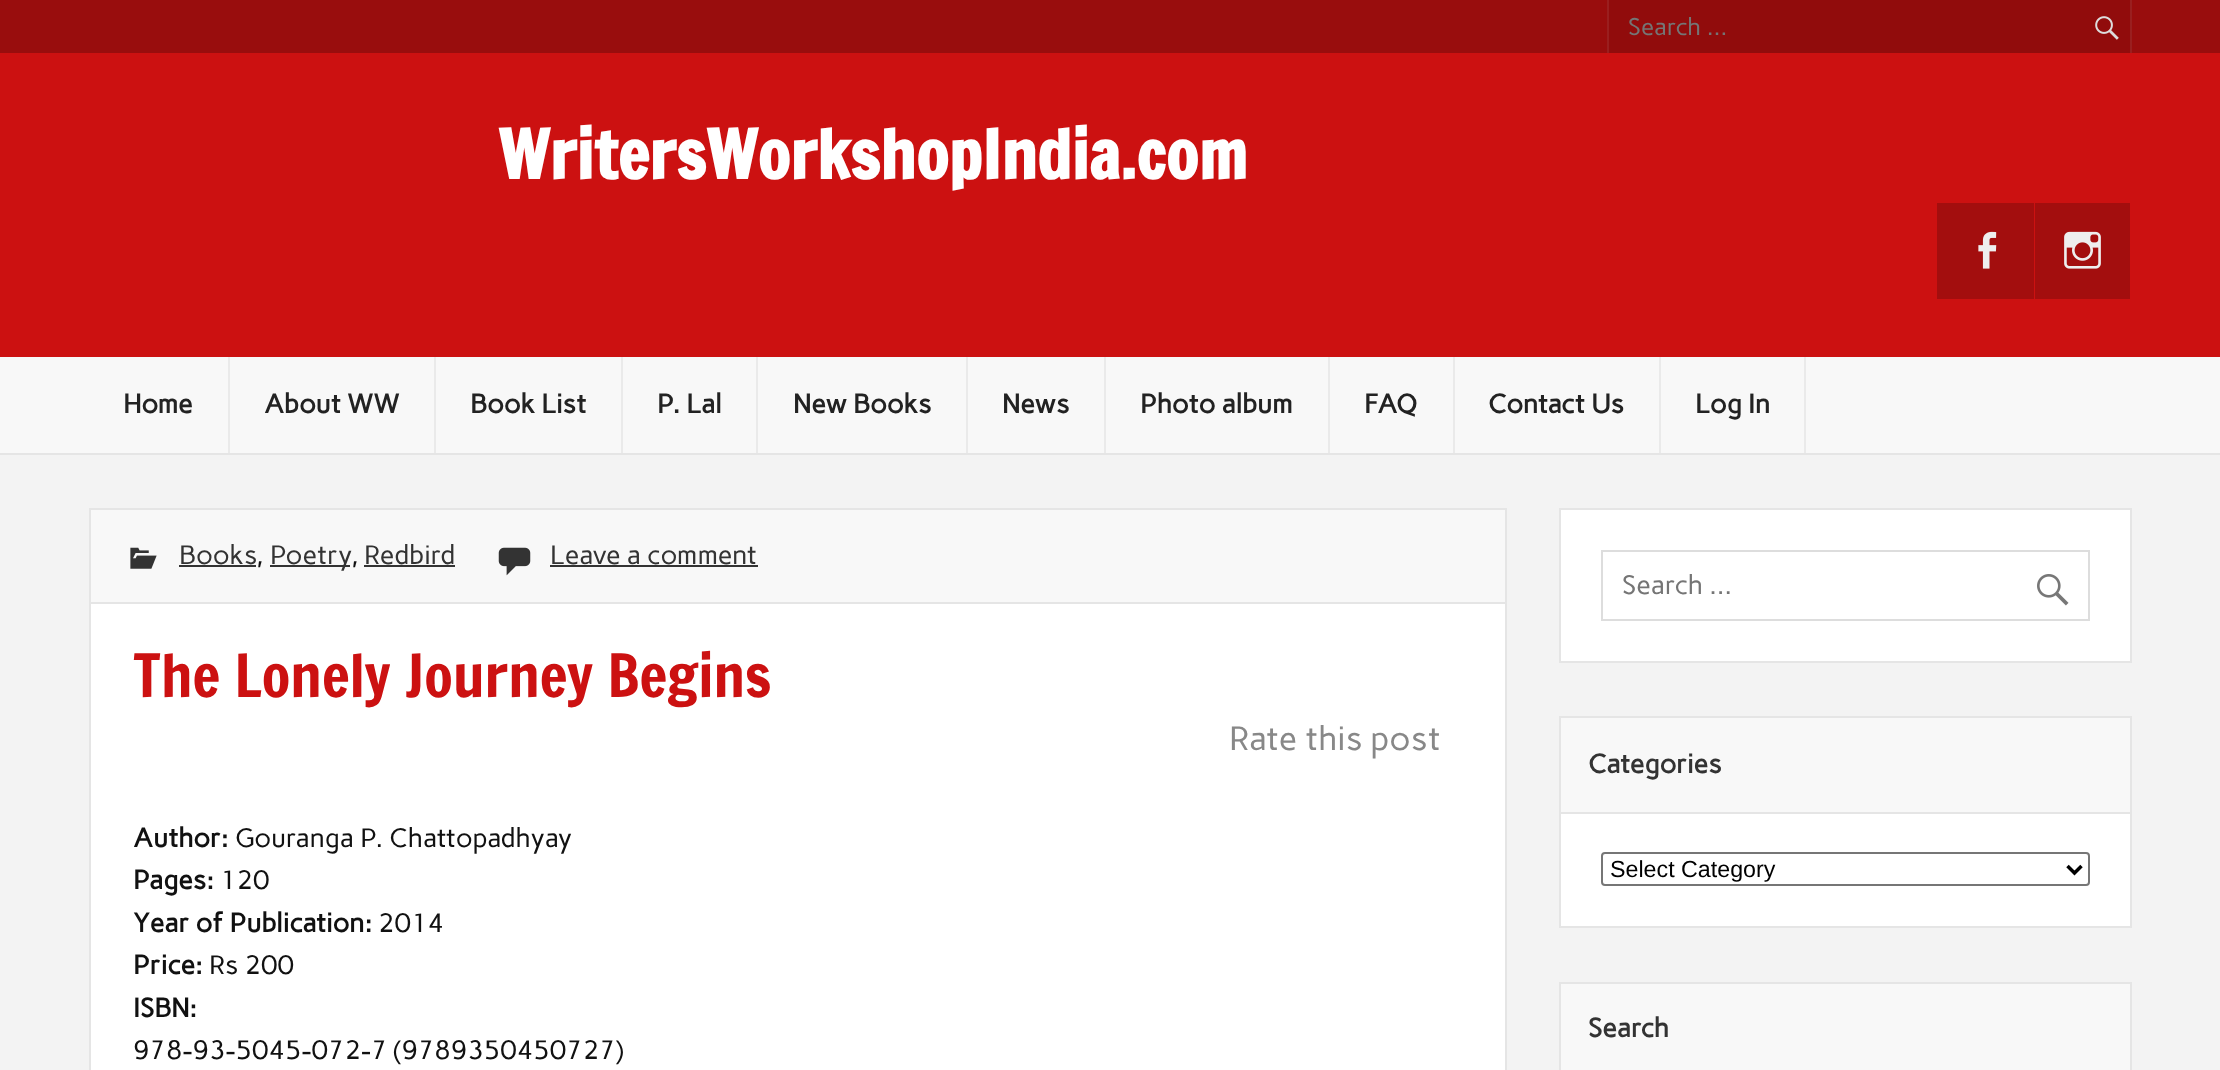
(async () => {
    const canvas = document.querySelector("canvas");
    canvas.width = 2220;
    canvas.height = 1070;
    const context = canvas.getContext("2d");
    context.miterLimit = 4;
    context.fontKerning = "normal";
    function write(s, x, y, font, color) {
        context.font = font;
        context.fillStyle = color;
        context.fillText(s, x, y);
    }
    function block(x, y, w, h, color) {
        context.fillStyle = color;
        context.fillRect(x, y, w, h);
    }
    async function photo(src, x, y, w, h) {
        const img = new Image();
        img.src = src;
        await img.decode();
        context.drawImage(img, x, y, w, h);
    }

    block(0, 0, 2220, 1070, "rgb(243, 243, 243)");
    block(0, 53, 2220, 304, "rgb(204, 17, 17)");
    block(0, 0, 2220, 53, "rgb(153, 13, 13)");
    block(1609, 0, 521, 53, "rgb(145, 12, 12)");
    block(2130, 0, 2, 53, "rgb(154, 31, 31)");
    block(1607, 0, 2, 53, "rgb(154, 31, 31)");
    write("Search …", 1628, 35, "24px Carme", "rgb(117, 117, 117)");
    await photo("media/1.png", 2095, 16, 24, 24);
    write("WritersWorkshopIndia.com", 498, 179, "bold 66.5px Francois One", "rgb(255, 255, 255)");
    block(1937, 203, 97, 96, "rgb(163, 14, 14)");
    await photo("media/2.png", 1978, 231, 19, 38);
    block(2035, 203, 95, 96, "rgb(163, 14, 14)");
    await photo("media/3.png", 2064, 231, 37, 38);
    block(0, 357, 2220, 96, "rgb(248, 248, 248)");
    block(0, 453, 2220, 2, "rgb(229, 229, 229)");
    block(228, 357, 2, 96, "rgb(234, 234, 234)");
    write("Home", 123, 413, "bold 26.6px Carme", "rgb(34, 34, 34)");
    block(434, 357, 2, 96, "rgb(234, 234, 234)");
    write("About WW", 264, 413, "bold 26.6px Carme", "rgb(34, 34, 34)");
    block(621, 357, 2, 96, "rgb(234, 234, 234)");
    write("Book List", 470, 413, "bold 26.6px Carme", "rgb(34, 34, 34)");
    block(756, 357, 2, 96, "rgb(234, 234, 234)");
    write("P. Lal", 657, 413, "bold 26.6px Carme", "rgb(34, 34, 34)");
    block(966, 357, 2, 96, "rgb(234, 234, 234)");
    write("New Books", 793, 413, "bold 26.6px Carme", "rgb(34, 34, 34)");
    block(1104, 357, 2, 96, "rgb(234, 234, 234)");
    write("News", 1002, 413, "bold 26.6px Carme", "rgb(34, 34, 34)");
    block(1328, 357, 2, 96, "rgb(234, 234, 234)");
    write("Photo album", 1140, 413, "bold 26.6px Carme", "rgb(34, 34, 34)");
    block(1453, 357, 2, 96, "rgb(234, 234, 234)");
    write("FAQ", 1364, 413, "bold 26.6px Carme", "rgb(34, 34, 34)");
    block(1659, 357, 2, 96, "rgb(234, 234, 234)");
    write("Contact Us", 1488, 413, "bold 26.6px Carme", "rgb(34, 34, 34)");
    block(1804, 357, 2, 96, "rgb(234, 234, 234)");
    write("Log In", 1695, 413, "bold 26.6px Carme", "rgb(34, 34, 34)");
    block(91, 510, 1414, 92, "rgb(248, 248, 248)");
    context.strokeStyle = "rgb(229, 229, 229)";
    context.lineWidth = 2;
    context.strokeRect(90, 509, 1416, 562);
    await photo("media/4.png", 130, 547, 27, 22);
    write("Books", 179, 564, "26.6px Carme", "rgb(51, 51, 51)");
    block(179, 565, 77, 2, "rgb(51, 51, 51)");
    write(",", 256, 564, "26.6px Carme", "rgb(17, 17, 17)");
    block(270, 565, 80, 2, "rgb(51, 51, 51)");
    write("Poetry", 270, 564, "26.6px Carme", "rgb(51, 51, 51)");
    write(",", 351, 564, "26.6px Carme", "rgb(17, 17, 17)");
    write("Redbird", 364, 564, "26.6px Carme", "rgb(51, 51, 51)");
    block(364, 565, 91, 2, "rgb(51, 51, 51)");
    await photo("media/5.png", 498, 547, 33, 29);
    write("Leave a comment", 550, 564, "26.6px Carme", "rgb(51, 51, 51)");
    block(550, 565, 208, 2, "rgb(51, 51, 51)");
    block(91, 604, 1414, 466, "rgb(255, 255, 255)");
    block(91, 602, 1414, 2, "rgb(229, 229, 229)");
    write("The Lonely Journey Begins", 133, 697, "58.5px Francois One", "rgb(204, 17, 17)");
    write("Rate this post", 1229, 750, "33.5px Carme", "rgb(136, 136, 136)");
    write("Author:", 133, 847, "bold 26.6px Carme", "rgb(17, 17, 17)");
    write("Gouranga P. Chattopadhyay", 235, 847, "26.6px Carme", "rgb(17, 17, 17)");
    write("Pages:", 133, 889, "bold 26.6px Carme", "rgb(17, 17, 17)");
    write("120", 220, 889, "26.6px Carme", "rgb(17, 17, 17)");
    write("Year of Publication:", 133, 932, "bold 26.6px Carme", "rgb(17, 17, 17)");
    write("2014", 378, 932, "26.6px Carme", "rgb(17, 17, 17)");
    write("Price:", 133, 974, "bold 26.6px Carme", "rgb(17, 17, 17)");
    write("Rs 200", 209, 974, "26.6px Carme", "rgb(17, 17, 17)");
    write("ISBN:", 133, 1017, "bold 26.6px Carme", "rgb(17, 17, 17)");
    write("978-93-5045-072-7 (9789350450727)", 133, 1059, "26.6px Carme", "rgb(17, 17, 17)");
    context.fillStyle = "rgb(255, 255, 255)";
    context.beginPath();
    context.rect(1560, 509, 571, 153);
    context.fill();
    context.stroke();
    context.strokeStyle = "rgb(221, 221, 221)";
    context.strokeRect(1602, 551, 487, 69);
    write("Search …", 1622, 594, "26.6px Carme", "rgb(117, 117, 117)");
    await photo("media/6.png", 2037, 574, 32, 32);
    block(1561, 814, 569, 112, "rgb(255, 255, 255)");
    context.strokeStyle = "rgb(229, 229, 229)";
    context.strokeRect(1560, 717, 571, 210);
    block(1561, 718, 569, 94, "rgb(248, 248, 248)");
    block(1561, 812, 569, 2, "rgb(229, 229, 229)");
    write("Categories", 1588, 773, "bold 26.6px Carme", "rgb(51, 51, 51)");
    context.beginPath();
    context.roundRect(1602, 853, 487, 32, 3);
    context.strokeStyle = "rgb(118, 118, 118)";
    context.stroke();
    context.beginPath();
    context.moveTo(2067.5, 866);
    context.lineTo(2074.5, 873);
    context.lineTo(2081.5, 866);
    context.strokeStyle = "rgb(0, 0, 0)";
    context.lineWidth = 3.5;
    context.stroke();
    write("Select Category", 1610, 877, "23.25px Liberation Sans", "rgb(0, 0, 0)");
    context.strokeStyle = "rgb(229, 229, 229)";
    context.lineWidth = 2;
    context.strokeRect(1560, 983, 571, 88);
    block(1561, 984, 569, 86, "rgb(248, 248, 248)");
    write("Search", 1588, 1037, "bold 26.6px Carme", "rgb(51, 51, 51)");
})();
